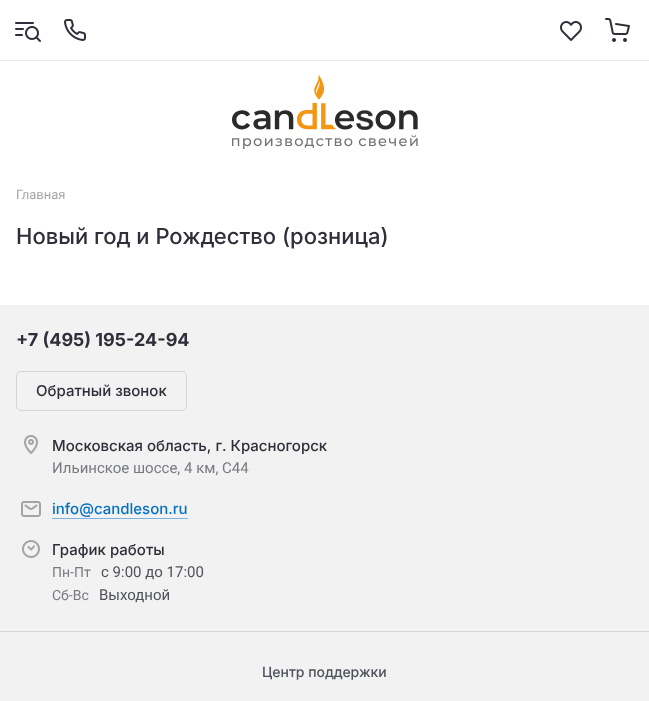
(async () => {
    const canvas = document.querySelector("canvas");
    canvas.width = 649;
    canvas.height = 701;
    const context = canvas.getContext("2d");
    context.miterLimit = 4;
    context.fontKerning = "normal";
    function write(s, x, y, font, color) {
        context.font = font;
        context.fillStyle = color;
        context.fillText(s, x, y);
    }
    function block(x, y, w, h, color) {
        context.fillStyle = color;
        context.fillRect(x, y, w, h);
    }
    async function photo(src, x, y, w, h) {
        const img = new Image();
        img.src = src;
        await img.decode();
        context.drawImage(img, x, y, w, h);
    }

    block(0, 0, 649, 701, "rgb(255, 255, 255)");
    block(0, 60, 649, 1, "rgb(235, 235, 235)");
    await photo("media/1.png", 15, 22, 26, 20);
    await photo("media/2.png", 64, 19, 22, 22);
    await photo("media/3.png", 560, 21, 22, 20);
    await photo("media/4.png", 605, 18, 25, 24);
    await photo("media/5.png", 232, 74, 186, 75);
    write("Главная", 16, 199, "13px Roboto", "rgb(165, 167, 170)");
    write("Новый год и Рождество (розница)", 16, 244, "500 22px Inter", "rgb(46, 47, 56)");
    block(0, 305, 649, 396, "rgb(242, 242, 242)");
    write("+7 (495) 195-24-94", 16, 346, "bold 18px Inter", "rgb(46, 47, 56)");
    context.beginPath();
    context.roundRect(16.5, 371.5, 170, 39, 4.5);
    context.strokeStyle = "rgb(213, 213, 213)";
    context.stroke();
    write("Обратный звонок", 36, 396, "500 15px Inter", "rgb(46, 47, 56)");
    await photo("media/6.png", 24, 435, 14, 19);
    write("Московская область, г. Красногорск", 52, 451, "500 15px Inter", "rgb(46, 47, 56)");
    write("Ильинское шоссе, 4 км, С44", 52, 473, "15px Roboto", "rgb(119, 122, 128)");
    await photo("media/7.png", 21, 501, 20, 16);
    write("info@candleson.ru", 52, 514, "500 15px Inter", "rgb(4, 112, 196)");
    block(52, 518, 136, 1, "rgb(123, 177, 219)");
    await photo("media/8.png", 22, 540, 18, 18);
    write("График работы", 52, 555, "500 15px Inter", "rgb(46, 47, 56)");
    write("Пн-Пт", 52, 577, "14px Roboto", "rgb(119, 122, 128)");
    write("с 9:00 до 17:00", 101, 577, "15px Roboto", "rgb(78, 82, 90)");
    write("Сб-Вс", 52, 600, "14px Roboto", "rgb(119, 122, 128)");
    write("Выходной", 99, 600, "15px Roboto", "rgb(78, 82, 90)");
    block(0, 631, 649, 1, "rgb(213, 213, 213)");
    write("Центр поддержки", 262, 677, "500 14px Inter", "rgb(78, 82, 90)");
})();
